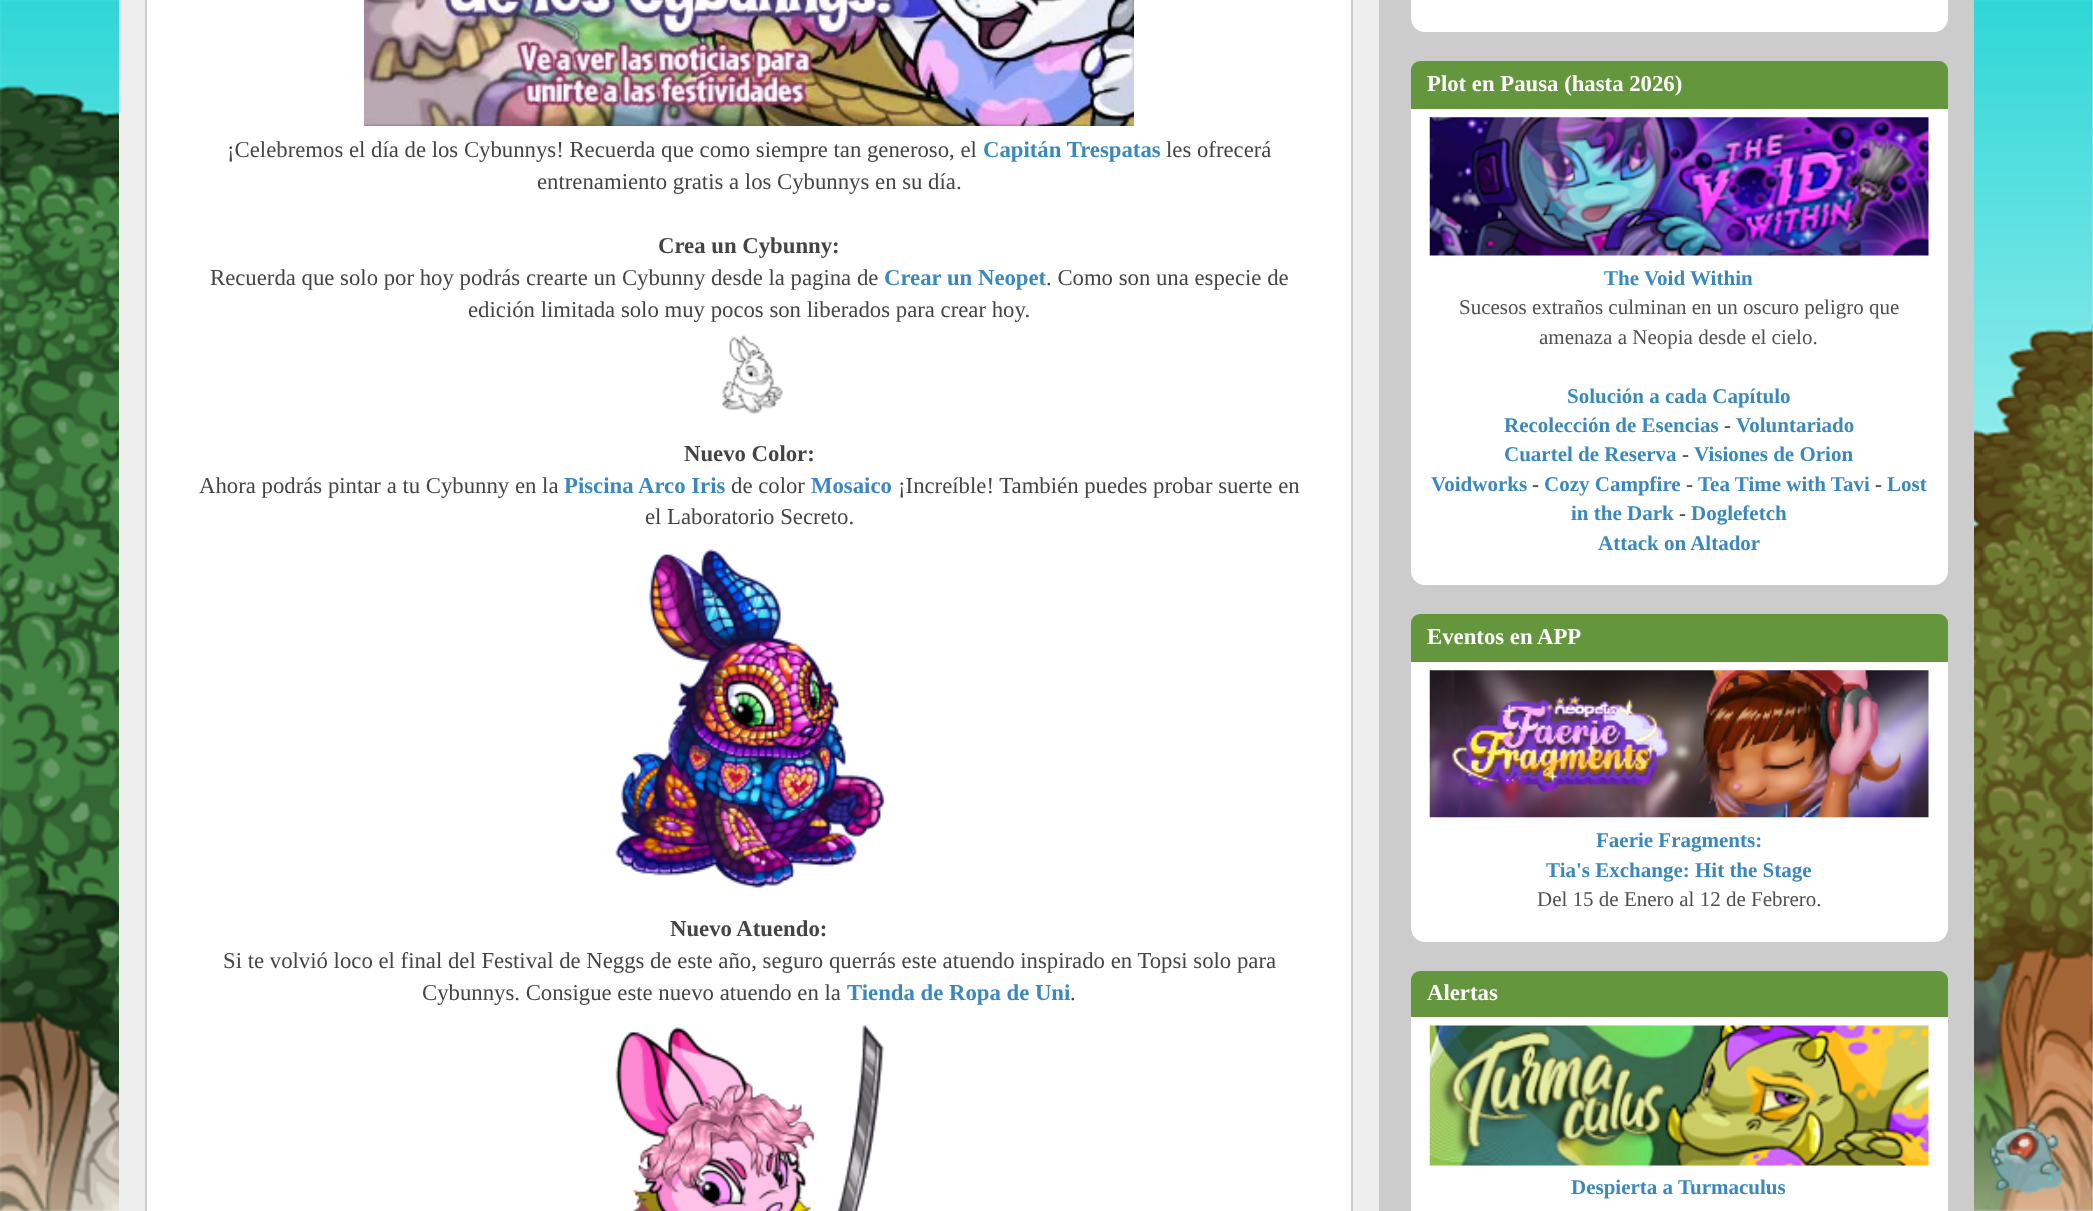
(async () => {
    const canvas = document.querySelector("canvas");
    canvas.width = 2093;
    canvas.height = 1211;
    const context = canvas.getContext("2d");
    context.miterLimit = 4;
    context.fontKerning = "normal";
    function write(s, x, y, font, color) {
        context.font = font;
        context.fillStyle = color;
        context.fillText(s, x, y);
    }
    function block(x, y, w, h, color) {
        context.fillStyle = color;
        context.fillRect(x, y, w, h);
    }
    function card(x, y, w, h, r, color) {
        context.fillStyle = color;
        context.beginPath();
        context.roundRect(x, y, w, h, r);
        context.fill();
    }
    async function photo(src, x, y, w, h) {
        const img = new Image();
        img.src = src;
        await img.decode();
        context.drawImage(img, x, y, w, h);
    }

    block(0, 0, 2093, 1211, "rgb(255, 255, 255)");
    await photo("media/1.png", 0, 0, 2093, 1211);
    block(1379, 0, 595, 1211, "rgb(204, 204, 204)");
    block(119, 0, 1260, 1211, "rgb(238, 238, 238)");
    context.fillStyle = "rgb(255, 255, 255)";
    context.beginPath();
    context.rect(146, -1, 1206, 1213);
    context.fill();
    context.strokeStyle = "rgb(204, 204, 204)";
    context.lineWidth = 2;
    context.stroke();
    await photo("media/2.png", 364, 0, 770, 126);
    write("¡Celebremos el día de los Cybunnys! Recuerda que como siempre tan generoso, el", 227, 157, "22.75px Liberation Serif", "rgb(68, 68, 68)");
    write("Capitán Trespatas", 983, 157, "bold 22.75px Liberation Serif", "rgb(59, 137, 188)");
    write("les ofrecerá", 1166, 157, "22.75px Liberation Serif", "rgb(68, 68, 68)");
    write("entrenamiento gratis a los Cybunnys en su día.", 537, 189, "22.75px Liberation Serif", "rgb(68, 68, 68)");
    write("Crea un Cybunny:", 658, 253, "bold 22.75px Liberation Serif", "rgb(68, 68, 68)");
    write("Recuerda que solo por hoy podrás crearte un Cybunny desde la pagina de", 210, 285, "22.75px Liberation Serif", "rgb(68, 68, 68)");
    write("Crear un Neopet", 884, 285, "bold 22.75px Liberation Serif", "rgb(59, 137, 188)");
    write(". Como son una especie de", 1046, 285, "22.75px Liberation Serif", "rgb(68, 68, 68)");
    write("edición limitada solo muy pocos son liberados para crear hoy.", 468, 317, "22.75px Liberation Serif", "rgb(68, 68, 68)");
    await photo("media/3.png", 722, 335, 61, 79);
    write("Nuevo Color:", 684, 461, "bold 22.75px Liberation Serif", "rgb(68, 68, 68)");
    write("Ahora podrás pintar a tu Cybunny en la", 199, 493, "22.75px Liberation Serif", "rgb(68, 68, 68)");
    write("Piscina Arco Iris", 564, 493, "bold 22.75px Liberation Serif", "rgb(59, 137, 188)");
    write("de color", 731, 493, "22.75px Liberation Serif", "rgb(68, 68, 68)");
    write("Mosaico", 811, 493, "bold 22.75px Liberation Serif", "rgb(61, 133, 198)");
    write("¡Increíble! También puedes probar suerte en", 898, 493, "22.75px Liberation Serif", "rgb(68, 68, 68)");
    write("el Laboratorio Secreto.", 645, 524, "22.75px Liberation Serif", "rgb(68, 68, 68)");
    await photo("media/4.png", 615, 549, 270, 339);
    write("Nuevo Atuendo:", 670, 936, "bold 22.75px Liberation Serif", "rgb(68, 68, 68)");
    write("Si te volvió loco el final del Festival de Neggs de este año, seguro querrás este atuendo inspirado en Topsi solo para", 223, 968, "22.75px Liberation Serif", "rgb(68, 68, 68)");
    write("Cybunnys. Consigue este nuevo atuendo en la", 422, 1000, "22.75px Liberation Serif", "rgb(68, 68, 68)");
    write("Tienda de Ropa de Uni", 847, 1000, "bold 22.75px Liberation Serif", "rgb(59, 137, 188)");
    write(".", 1070, 1000, "22.75px Liberation Serif", "rgb(68, 68, 68)");
    await photo("media/5.png", 615, 1025, 270, 186);
    card(1411, -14, 537, 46, 14, "rgb(255, 255, 255)");
    card(1411, 63, 537, 522, 14, "rgb(255, 255, 255)");
    context.fillStyle = "rgb(100, 150, 61)";
    context.beginPath();
    context.roundRect(1411, 61, 537, 48, [9, 9, 0, 0]);
    context.fill();
    write("Plot en Pausa (hasta 2026)", 1427, 91, "bold 22.75px Liberation Serif", "rgb(255, 255, 255)");
    await photo("media/6.png", 1429, 117, 500, 139);
    write("The Void Within", 1604, 285, "bold 21px Liberation Serif", "rgb(59, 137, 188)");
    write("Sucesos extraños culminan en un oscuro peligro que", 1459, 314, "21px Liberation Serif", "rgb(80, 80, 80)");
    write("amenaza a Neopia desde el cielo.", 1539, 344, "21px Liberation Serif", "rgb(80, 80, 80)");
    write("Solución a cada Capítulo", 1567, 403, "bold 21px Liberation Serif", "rgb(59, 137, 188)");
    write("Recolección de Esencias", 1504, 432, "bold 21px Liberation Serif", "rgb(59, 137, 188)");
    write("-", 1724, 432, "bold 21px Liberation Serif", "rgb(80, 80, 80)");
    write("Voluntariado", 1736, 432, "bold 21px Liberation Serif", "rgb(59, 137, 188)");
    write("Cuartel de Reserva", 1504, 461, "bold 21px Liberation Serif", "rgb(59, 137, 188)");
    write("-", 1682, 461, "bold 21px Liberation Serif", "rgb(80, 80, 80)");
    write("Visiones de Orion", 1694, 461, "bold 21px Liberation Serif", "rgb(59, 137, 188)");
    write("Voidworks", 1431, 491, "bold 21px Liberation Serif", "rgb(59, 137, 188)");
    write("-", 1532, 491, "bold 21px Liberation Serif", "rgb(80, 80, 80)");
    write("Cozy Campfire", 1544, 491, "bold 21px Liberation Serif", "rgb(59, 137, 188)");
    write("-", 1686, 491, "bold 21px Liberation Serif", "rgb(80, 80, 80)");
    write("Tea Time with Tavi", 1698, 491, "bold 21px Liberation Serif", "rgb(59, 137, 188)");
    write("-", 1875, 491, "bold 21px Liberation Serif", "rgb(80, 80, 80)");
    write("Lost", 1887, 491, "bold 21px Liberation Serif", "rgb(59, 137, 188)");
    write("in the Dark", 1571, 520, "bold 21px Liberation Serif", "rgb(59, 137, 188)");
    write("-", 1679, 520, "bold 21px Liberation Serif", "rgb(80, 80, 80)");
    write("Doglefetch", 1691, 520, "bold 21px Liberation Serif", "rgb(59, 137, 188)");
    write("Attack on Altador", 1598, 550, "bold 21px Liberation Serif", "rgb(59, 137, 188)");
    card(1411, 616, 537, 326, 14, "rgb(255, 255, 255)");
    context.fillStyle = "rgb(100, 150, 61)";
    context.beginPath();
    context.roundRect(1411, 614, 537, 48, [9, 9, 0, 0]);
    context.fill();
    write("Eventos en APP", 1427, 644, "bold 22.75px Liberation Serif", "rgb(255, 255, 255)");
    await photo("media/7.png", 1429, 670, 500, 148);
    write("Faerie Fragments:", 1596, 847, "bold 21px Liberation Serif", "rgb(59, 137, 188)");
    write("Tia's Exchange: Hit the Stage", 1546, 877, "bold 21px Liberation Serif", "rgb(59, 137, 188)");
    write("Del 15 de Enero al 12 de Febrero.", 1537, 906, "21px Liberation Serif", "rgb(80, 80, 80)");
    card(1411, 973, 537, 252, 14, "rgb(255, 255, 255)");
    context.fillStyle = "rgb(100, 150, 61)";
    context.beginPath();
    context.roundRect(1411, 971, 537, 46, [9, 9, 0, 0]);
    context.fill();
    write("Alertas", 1427, 1000, "bold 22.75px Liberation Serif", "rgb(255, 255, 255)");
    await photo("media/8.png", 1429, 1025, 500, 141);
    write("Despierta a Turmaculus", 1571, 1194, "bold 21px Liberation Serif", "rgb(59, 137, 188)");
    await photo("media/9.png", 1989, 1121, 75, 73);
})();
